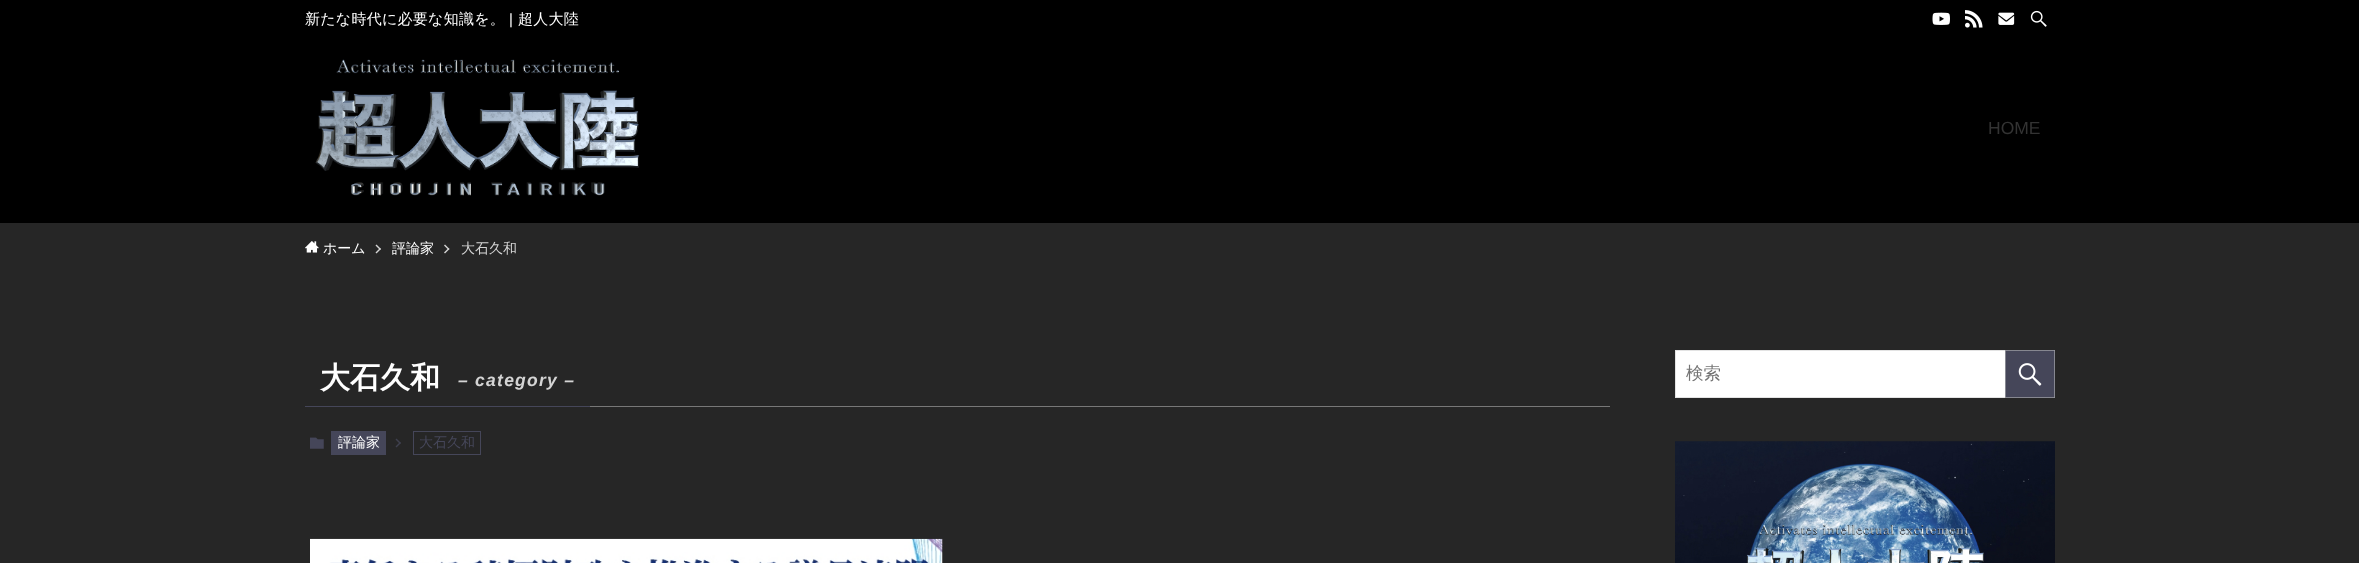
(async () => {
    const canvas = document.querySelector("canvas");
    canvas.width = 2359;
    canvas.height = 563;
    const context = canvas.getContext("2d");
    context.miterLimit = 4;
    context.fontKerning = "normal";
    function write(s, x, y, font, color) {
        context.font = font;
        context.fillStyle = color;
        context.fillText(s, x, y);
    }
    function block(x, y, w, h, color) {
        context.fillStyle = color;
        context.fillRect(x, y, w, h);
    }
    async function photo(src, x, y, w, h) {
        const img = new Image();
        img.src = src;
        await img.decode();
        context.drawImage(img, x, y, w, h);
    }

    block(0, 0, 2359, 563, "rgb(38, 38, 38)");
    block(0, 0, 2359, 223, "rgb(0, 0, 0)");
    context.letterSpacing = "0.25px";
    write("新たな時代に必要な知識を。", 305, 24, "500 15px WenQuanYi Zen Hei", "rgb(255, 255, 255)");
    write("|", 509, 24, "15px Liberation Sans", "rgb(255, 255, 255)");
    write("超人大陸", 518, 24, "500 15px WenQuanYi Zen Hei", "rgb(255, 255, 255)");
    await photo("media/1.png", 1932, 12, 18, 13);
    await photo("media/2.png", 1965, 10, 18, 18);
    await photo("media/3.png", 1998, 12, 17, 13);
    await photo("media/4.png", 2030, 10, 17, 17);
    await photo("media/5.png", 315, 59, 325, 137);
    context.letterSpacing = "0px";
    write("HOME", 1988, 134, "17.5px Liberation Sans", "rgb(51, 51, 51)");
    await photo("media/6.png", 305, 241, 14, 12);
    write("ホーム", 323, 253, "500 14px WenQuanYi Zen Hei", "rgb(255, 255, 255)");
    context.fillStyle = "rgb(212, 212, 212)";
    context.beginPath();
    context.moveTo(376.5, 244.5);
    context.lineTo(381, 249);
    context.lineTo(380, 250);
    context.lineTo(375.5, 245.5);
    context.closePath();
    context.fill();
    context.beginPath();
    context.moveTo(380, 248);
    context.lineTo(381, 249);
    context.lineTo(376.5, 253.5);
    context.lineTo(375.5, 252.5);
    context.closePath();
    context.fill();
    write("評論家", 392, 253, "500 14px WenQuanYi Zen Hei", "rgb(255, 255, 255)");
    context.fillStyle = "rgb(212, 212, 212)";
    context.beginPath();
    context.moveTo(445, 244.5);
    context.lineTo(449.5, 249);
    context.lineTo(448.5, 250);
    context.lineTo(444, 245.5);
    context.closePath();
    context.fill();
    context.beginPath();
    context.moveTo(448.5, 248);
    context.lineTo(449.5, 249);
    context.lineTo(445, 253.5);
    context.lineTo(444, 252.5);
    context.closePath();
    context.fill();
    write("大石久和", 461, 253, "500 14px WenQuanYi Zen Hei", "rgb(212, 212, 212)");
    block(590, 406, 1020, 1, "rgb(119, 119, 119)");
    block(305, 406, 285, 1, "rgb(69, 70, 89)");
    write("大石久和", 320, 388, "bold 30px WenQuanYi Zen Hei", "rgb(255, 255, 255)");
    context.letterSpacing = "1.25px";
    write("– category –", 458, 386, "italic bold 17.5px Liberation Sans", "rgb(212, 212, 212)");
    await photo("media/7.png", 310, 437, 14, 12);
    block(331, 431, 55, 24, "rgb(69, 70, 89)");
    context.letterSpacing = "0px";
    write("評論家", 338, 447, "500 14px WenQuanYi Zen Hei", "rgb(255, 255, 255)");
    context.fillStyle = "rgb(63, 64, 79)";
    context.beginPath();
    context.moveTo(396.5, 438.5);
    context.lineTo(401, 443);
    context.lineTo(400, 444);
    context.lineTo(395.5, 439.5);
    context.closePath();
    context.fill();
    context.beginPath();
    context.moveTo(400, 442);
    context.lineTo(401, 443);
    context.lineTo(396.5, 447.5);
    context.lineTo(395.5, 446.5);
    context.closePath();
    context.fill();
    context.strokeStyle = "rgb(69, 70, 89)";
    context.strokeRect(413.5, 431.5, 67, 23);
    write("大石久和", 419, 447, "500 14px WenQuanYi Zen Hei", "rgb(69, 70, 89)");
    await photo("media/8.png", 310, 538, 633, 25);
    block(1676, 351, 329, 46, "rgb(255, 255, 255)");
    context.strokeStyle = "rgb(227, 227, 227)";
    context.strokeRect(1675.5, 350.5, 379, 47);
    write("検索", 1686, 379, "500 17.5px WenQuanYi Zen Hei", "rgb(117, 117, 117)");
    context.fillStyle = "rgb(69, 70, 89)";
    context.beginPath();
    context.rect(2005.5, 350.5, 49, 47);
    context.fill();
    context.strokeStyle = "rgb(134, 135, 144)";
    context.stroke();
    await photo("media/9.png", 2018, 363, 24, 23);
    await photo("media/10.png", 1675, 441, 380, 122);
})();
